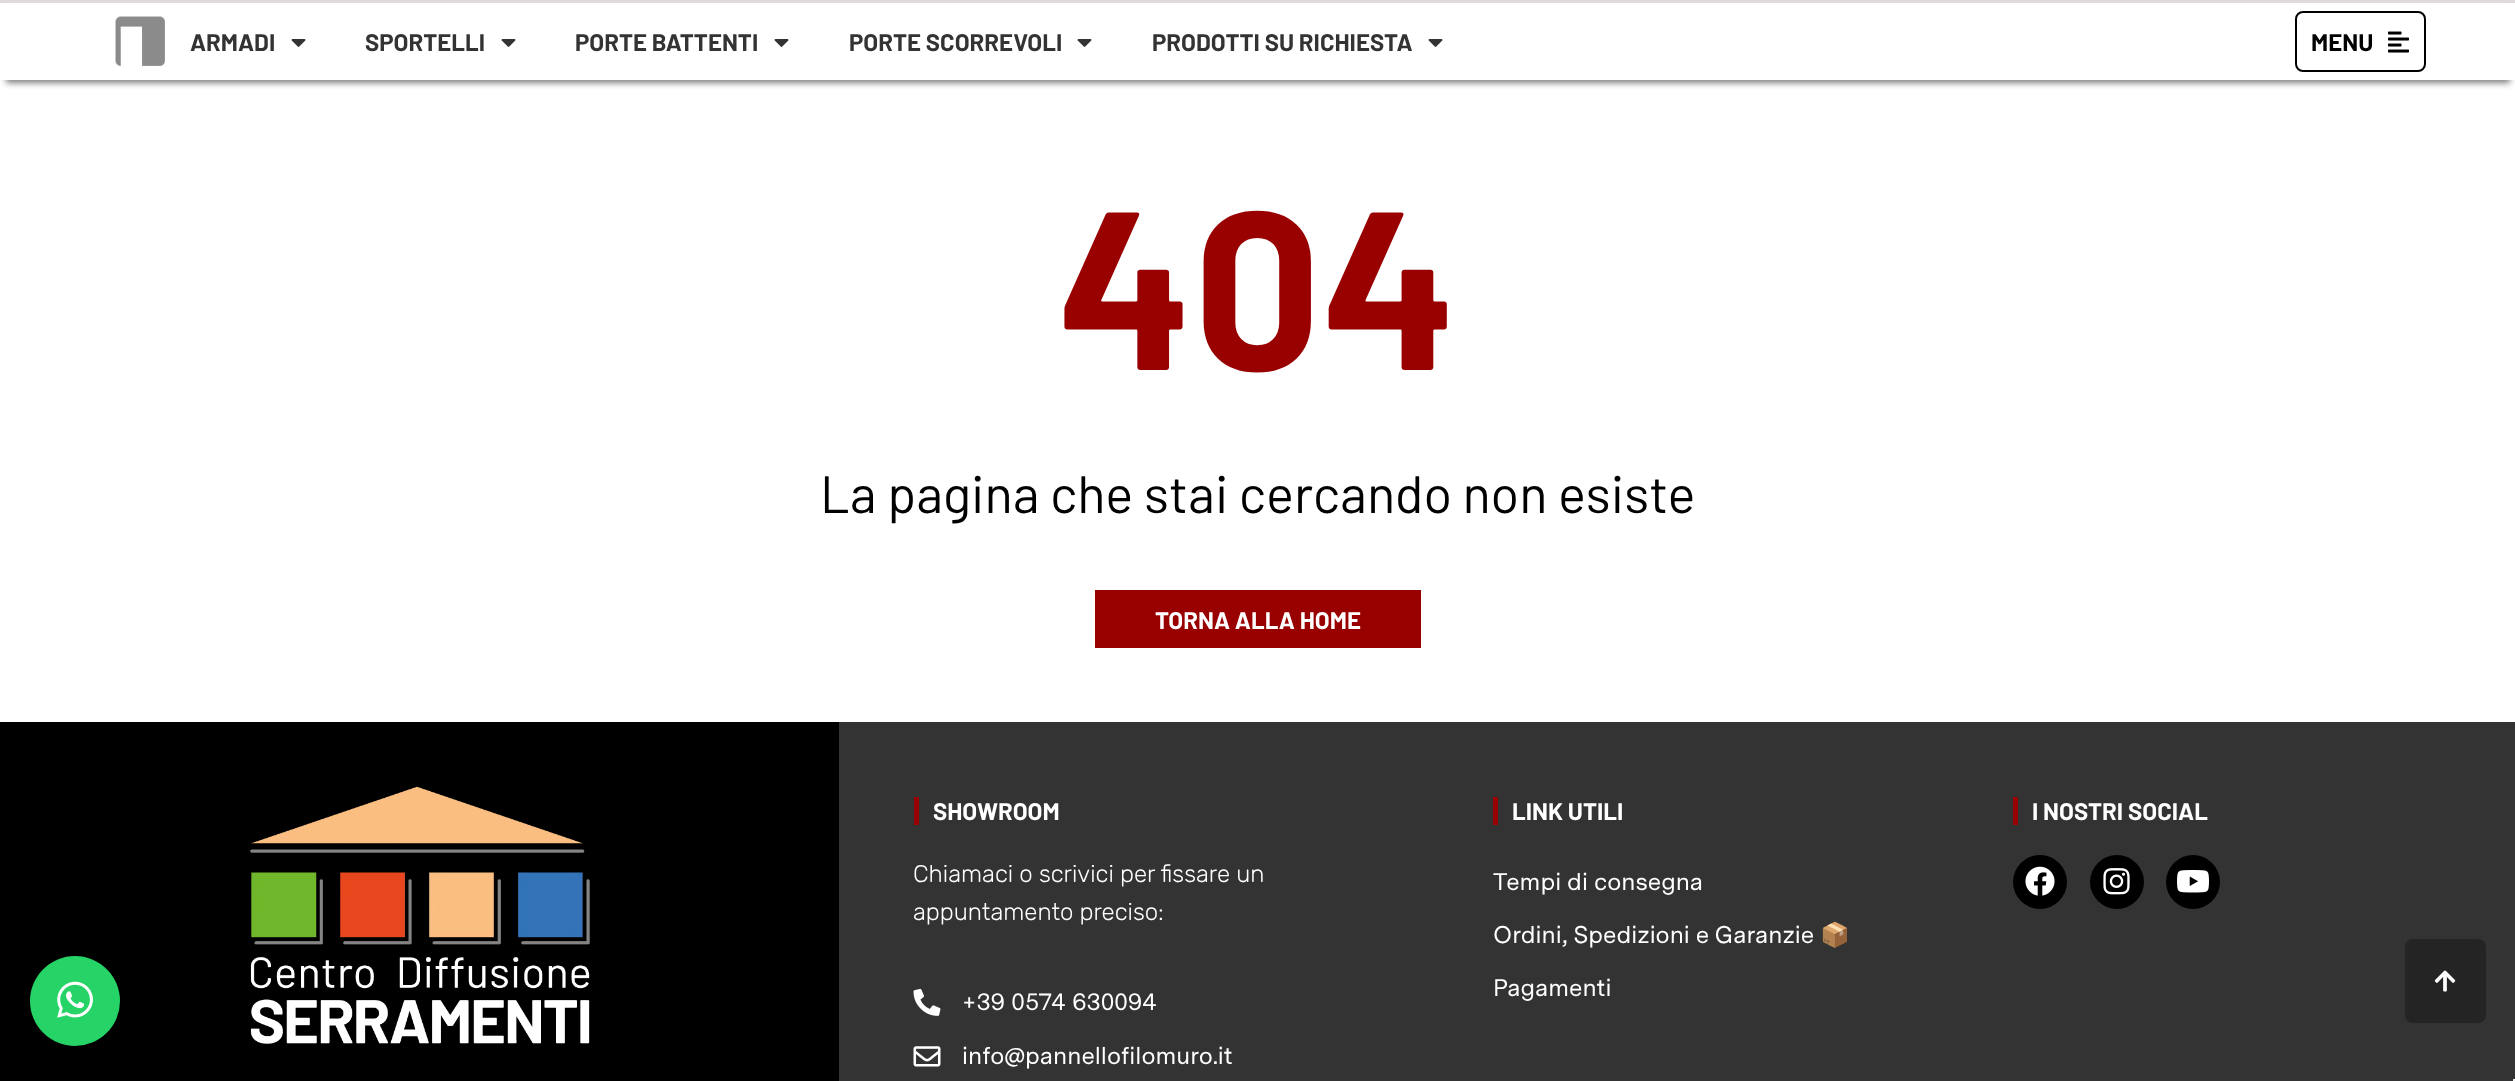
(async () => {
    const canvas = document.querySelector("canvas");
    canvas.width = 2515;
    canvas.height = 1081;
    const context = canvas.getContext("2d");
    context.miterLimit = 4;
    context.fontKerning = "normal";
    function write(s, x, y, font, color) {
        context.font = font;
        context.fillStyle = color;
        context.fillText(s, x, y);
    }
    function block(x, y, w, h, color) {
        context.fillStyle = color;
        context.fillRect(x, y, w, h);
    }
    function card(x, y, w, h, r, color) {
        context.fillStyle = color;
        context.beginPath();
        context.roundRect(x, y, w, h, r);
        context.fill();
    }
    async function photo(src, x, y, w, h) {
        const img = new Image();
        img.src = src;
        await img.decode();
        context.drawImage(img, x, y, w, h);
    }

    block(0, 0, 2515, 1081, "rgb(255, 255, 255)");
    context.fillStyle = "rgba(0, 0, 0, 0.5)";
    context.filter = "blur(3px)";
    context.beginPath();
    context.rect(6, 15, 2504, 68);
    context.fill();
    context.filter = "none";
    block(0, 9, 2515, 71, "rgb(255, 255, 255)");
    block(0, 0, 2515, 3, "rgb(224, 219, 219)");
    await photo("media/1.png", 115, 16, 50, 50);
    write("ARMADI", 190, 51, "bold 24px Barlow", "rgb(51, 51, 51)");
    await photo("media/2.png", 291, 39, 15, 8);
    write("SPORTELLI", 365, 51, "bold 24px Barlow", "rgb(51, 51, 51)");
    await photo("media/2.png", 501, 39, 15, 8);
    write("PORTE BATTENTI", 575, 51, "bold 24px Barlow", "rgb(51, 51, 51)");
    await photo("media/2.png", 774, 39, 15, 8);
    write("PORTE SCORREVOLI", 849, 51, "bold 24px Barlow", "rgb(51, 51, 51)");
    await photo("media/2.png", 1077, 39, 15, 8);
    write("PRODOTTI SU RICHIESTA", 1152, 51, "bold 24px Barlow", "rgb(51, 51, 51)");
    await photo("media/2.png", 1428, 39, 15, 8);
    context.beginPath();
    context.roundRect(2296, 12, 129, 59, 7);
    context.strokeStyle = "rgb(0, 0, 0)";
    context.lineWidth = 2;
    context.stroke();
    write("MENU", 2311, 51, "bold 24px Barlow", "rgb(0, 0, 0)");
    await photo("media/3.png", 2388, 31, 21, 22);
    write("404", 1057, 370, "bold 225px Barlow", "rgb(153, 0, 0)");
    write("La pagina che stai cercando non esiste", 820, 513, "52.5px Barlow", "rgb(0, 0, 0)");
    block(1095, 590, 326, 58, "rgb(153, 0, 0)");
    write("TORNA ALLA HOME", 1155, 629, "bold 24px Barlow", "rgb(255, 255, 255)");
    block(0, 722, 839, 359, "rgb(0, 0, 0)");
    context.fillStyle = "rgb(37, 211, 102)";
    context.beginPath();
    context.arc(75, 1001, 45, 0, Math.PI * 2);
    context.fill();
    await photo("media/4.png", 57, 981, 36, 37);
    await photo("media/5.png", 250, 786, 340, 258);
    block(839, 722, 1676, 359, "rgb(51, 51, 51)");
    block(2513, 1079, 2, 2, "rgb(245, 245, 245)");
    block(914, 797, 5, 28, "rgb(153, 0, 0)");
    write("SHOWROOM", 933, 820, "bold 24px Barlow", "rgb(255, 255, 255)");
    write("Chiamaci o scrivici per fissare un", 913, 882, "300 24px Rubik", "rgb(255, 255, 255)");
    write("appuntamento preciso:", 913, 920, "300 24px Rubik", "rgb(255, 255, 255)");
    await photo("media/6.png", 913, 988, 28, 28);
    write("+39 0574 630094", 962, 1010, "24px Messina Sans", "rgb(255, 255, 255)");
    await photo("media/7.png", 913, 1046, 28, 21);
    write("info@pannellofilomuro.it", 962, 1064, "24px Messina Sans", "rgb(255, 255, 255)");
    block(1493, 797, 5, 28, "rgb(153, 0, 0)");
    write("LINK UTILI", 1512, 820, "bold 24px Barlow", "rgb(255, 255, 255)");
    write("Tempi di consegna", 1493, 890, "24px Messina Sans", "rgb(255, 255, 255)");
    write("Ordini, Spedizioni e Garanzie", 1493, 943, "24px Messina Sans", "rgb(255, 255, 255)");
    write("📦", 1820, 943, "24px Noto Color Emoji", "rgb(255, 255, 255)");
    write("Pagamenti", 1493, 996, "24px Messina Sans", "rgb(255, 255, 255)");
    block(2013, 797, 5, 28, "rgb(153, 0, 0)");
    write("I NOSTRI SOCIAL", 2032, 820, "bold 24px Barlow", "rgb(255, 255, 255)");
    context.fillStyle = "rgb(0, 0, 0)";
    context.beginPath();
    context.arc(2040, 882, 27, 0, Math.PI * 2);
    context.fill();
    await photo("media/8.png", 2025, 866, 30, 30);
    context.beginPath();
    context.arc(2117, 882, 27, 0, Math.PI * 2);
    context.fill();
    await photo("media/9.png", 2103, 868, 27, 27);
    context.beginPath();
    context.arc(2193, 882, 27, 0, Math.PI * 2);
    context.fill();
    await photo("media/10.png", 2177, 870, 32, 23);
    card(2405, 939, 81, 84, 8, "rgb(36, 36, 36)");
    await photo("media/11.png", 2434, 970, 22, 22);
})();
